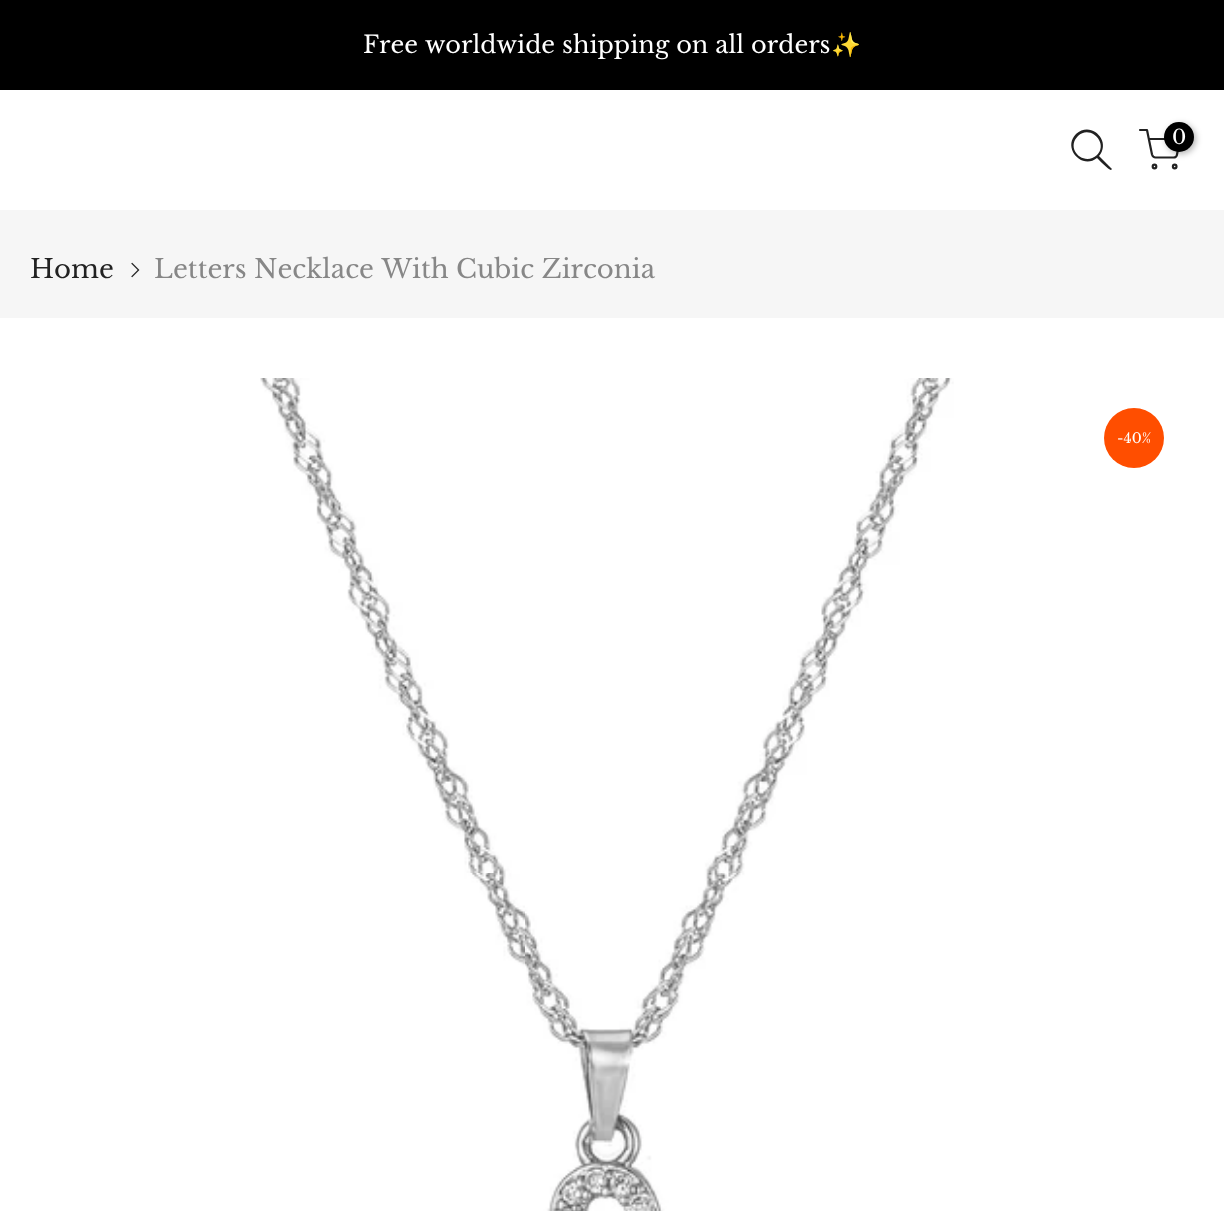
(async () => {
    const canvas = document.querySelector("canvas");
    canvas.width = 1224;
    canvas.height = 1211;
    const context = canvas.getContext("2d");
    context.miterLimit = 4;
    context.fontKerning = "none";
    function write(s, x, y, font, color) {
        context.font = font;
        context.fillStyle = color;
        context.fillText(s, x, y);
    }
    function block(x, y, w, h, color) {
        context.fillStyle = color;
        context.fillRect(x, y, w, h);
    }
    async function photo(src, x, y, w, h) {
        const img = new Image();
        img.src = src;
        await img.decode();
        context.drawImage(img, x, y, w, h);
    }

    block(0, 0, 1224, 1211, "rgb(255, 255, 255)");
    block(0, 0, 1224, 90, "rgb(0, 0, 0)");
    write("Free worldwide shipping on all orders", 363, 53, "24px Libre Baskerville", "rgb(255, 255, 255)");
    write("✨", 831, 53, "24px Noto Color Emoji", "rgb(255, 255, 255)");
    context.fillStyle = "rgb(34, 34, 34)";
    context.beginPath();
    context.moveTo(1097, 155);
    context.bezierCurveTo(1084, 167, 1065, 149, 1078, 136);
    context.bezierCurveTo(1090, 124, 1109, 143, 1097, 155);
    context.closePath();
    context.moveTo(1097, 158);
    context.bezierCurveTo(1082, 170, 1062, 148, 1076, 134);
    context.bezierCurveTo(1091, 120, 1112, 141, 1099, 156);
    context.lineTo(1112, 169);
    context.lineTo(1111, 170);
    context.bezierCurveTo(1110, 171, 1099, 160, 1097, 158);
    context.closePath();
    context.fill("evenodd");
    context.beginPath();
    context.moveTo(1140, 130);
    context.lineTo(1147, 130);
    context.lineTo(1152, 154.5);
    context.bezierCurveTo(1152.5, 156, 1154, 157.5, 1155.5, 157.5);
    context.lineTo(1173.5, 157.5);
    context.bezierCurveTo(1175.5, 157.5, 1177, 156, 1177, 154.5);
    context.lineTo(1180, 139);
    context.lineTo(1149, 139);
    context.strokeStyle = "rgb(34, 34, 34)";
    context.lineWidth = 2.2;
    context.lineCap = "round";
    context.lineJoin = "round";
    context.stroke();
    context.beginPath();
    context.arc(1154.5, 166.5, 1.8, 0, Math.PI * 2);
    context.stroke();
    context.beginPath();
    context.arc(1174.7, 166.5, 1.8, 0, Math.PI * 2);
    context.stroke();
    context.fillStyle = "rgba(0, 0, 0, 0.3)";
    context.filter = "blur(3px)";
    context.beginPath();
    context.roundRect(1166, 124, 30, 30, 15);
    context.fill();
    context.filter = "none";
    context.fillStyle = "rgb(0, 0, 0)";
    context.beginPath();
    context.arc(1179, 137, 15, 0, Math.PI * 2);
    context.fill();
    write("0", 1172, 144, "20px Libre Baskerville", "rgb(255, 255, 255)");
    block(0, 210, 1224, 108, "rgb(246, 246, 246)");
    write("Home", 30, 278, "26px Libre Baskerville", "rgb(34, 34, 34)");
    await photo("media/1.png", 131, 262, 9, 16);
    write("Letters Necklace With Cubic Zirconia", 154, 278, "26px Libre Baskerville", "rgb(135, 135, 135)");
    await photo("media/2.png", 260, 378, 694, 833);
    context.fillStyle = "rgb(255, 78, 0)";
    context.beginPath();
    context.arc(1134, 438, 30, 0, Math.PI * 2);
    context.fill();
    write("-40%", 1117, 443, "14px Libre Baskerville", "rgb(255, 255, 255)");
})();
